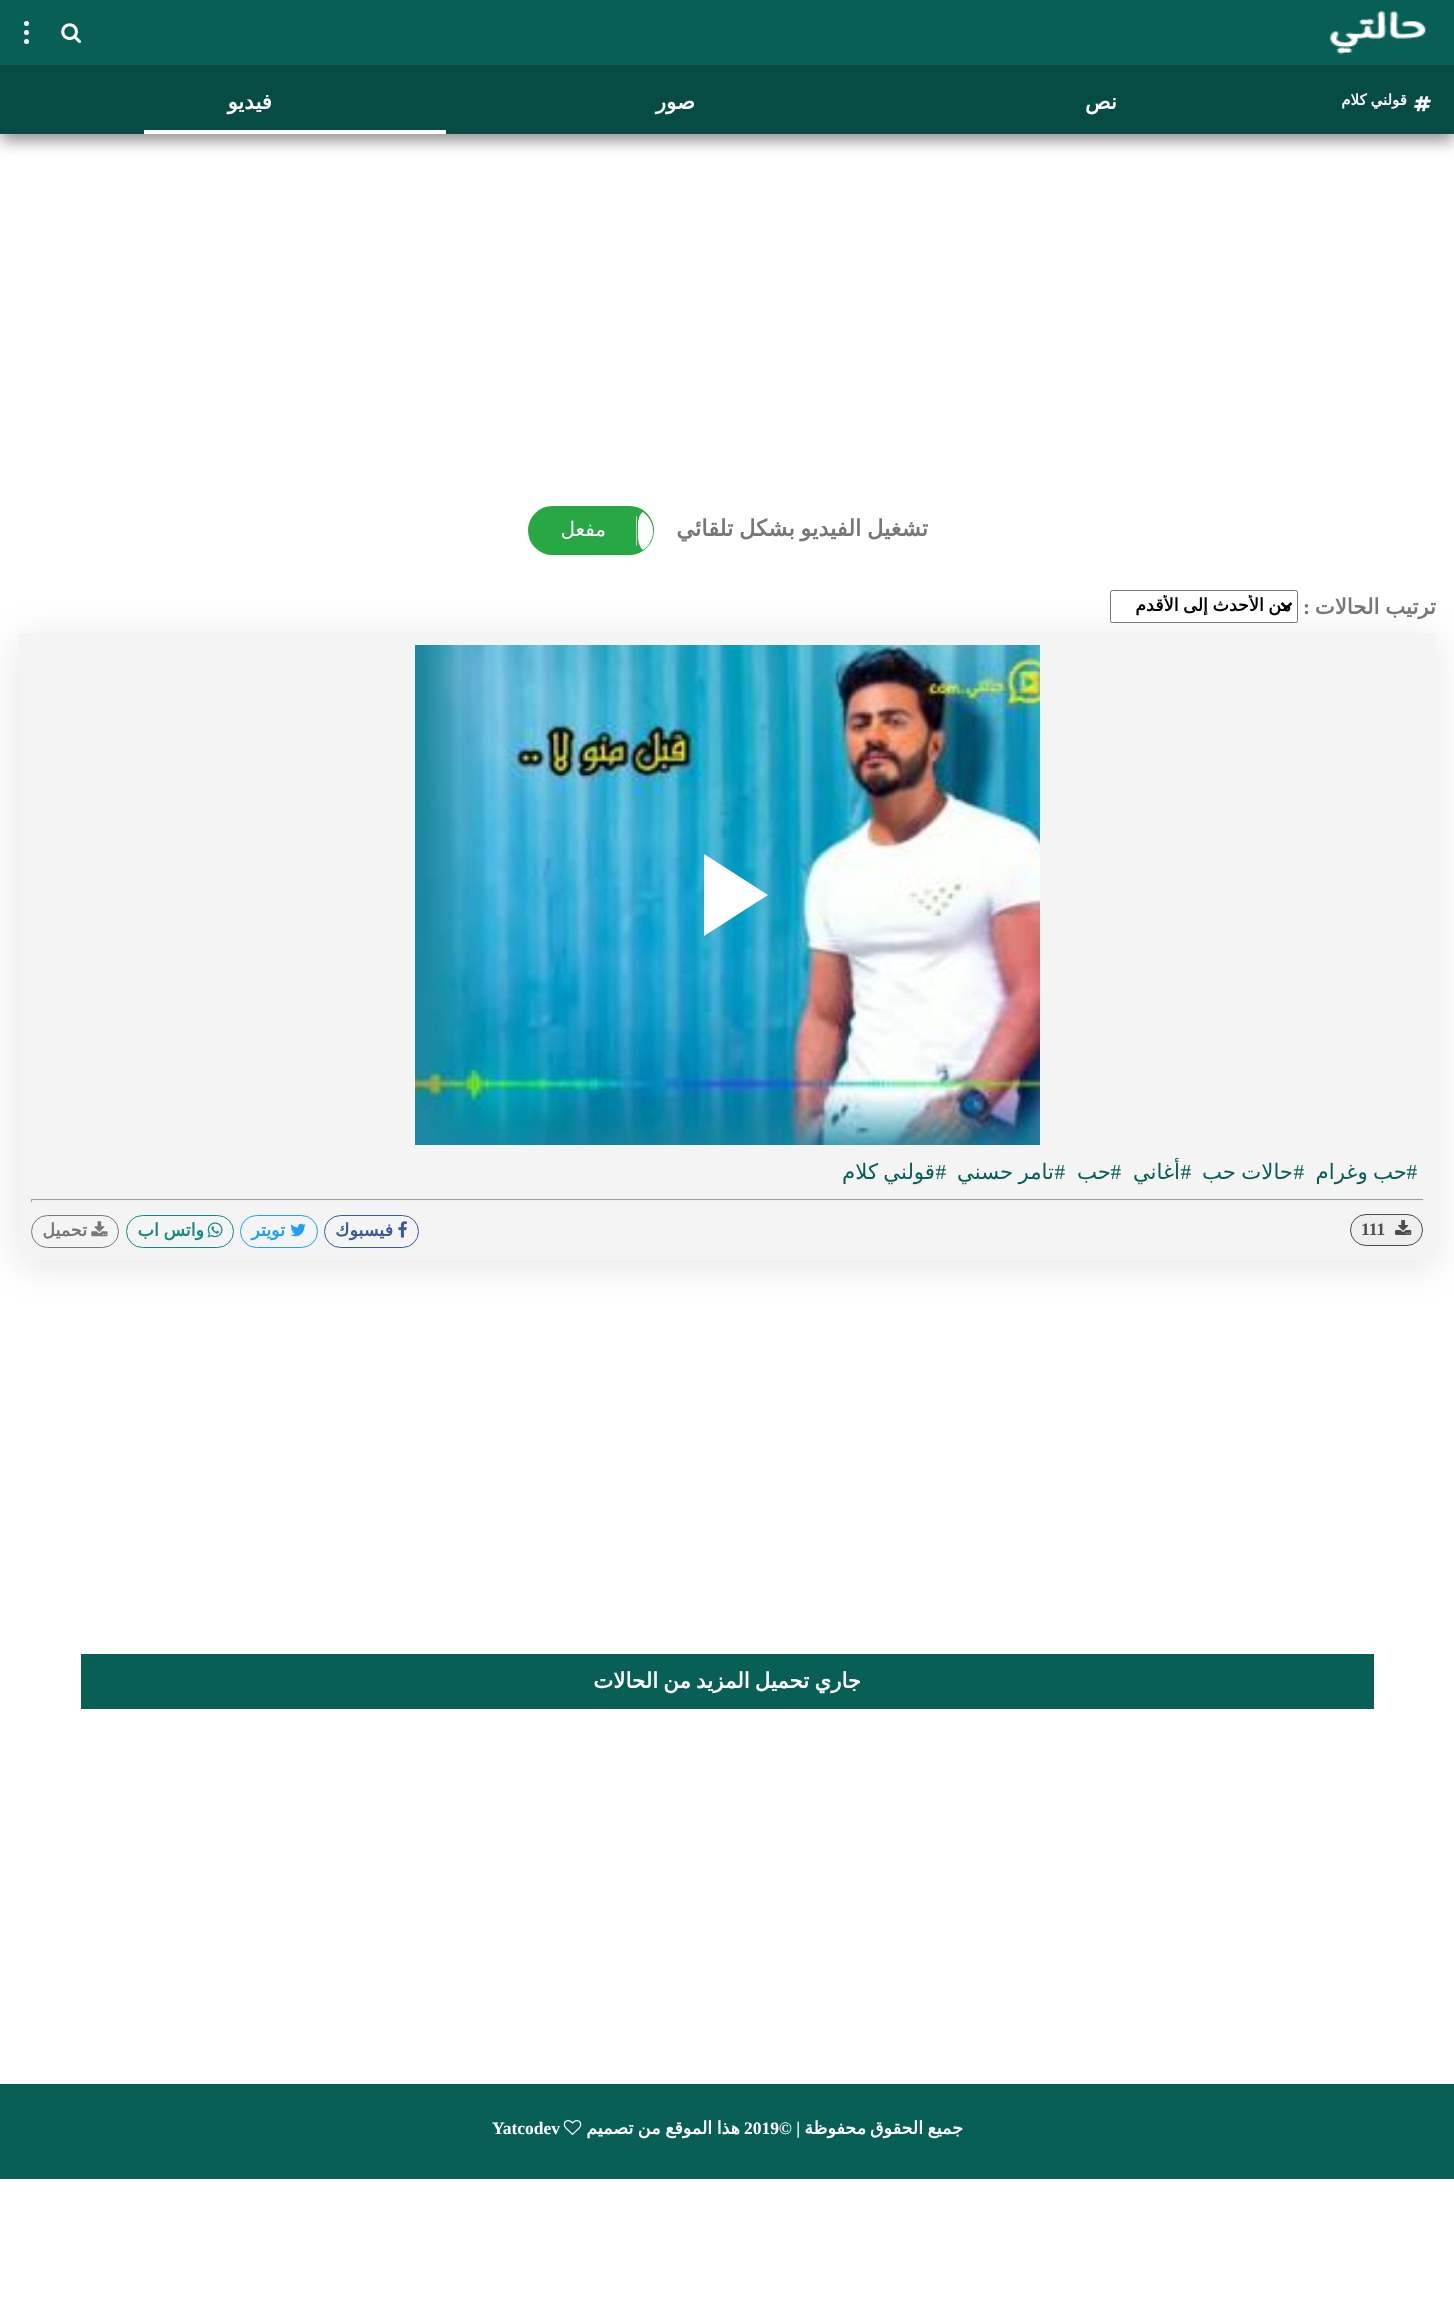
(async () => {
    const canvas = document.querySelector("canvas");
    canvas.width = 1454;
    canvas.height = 2302;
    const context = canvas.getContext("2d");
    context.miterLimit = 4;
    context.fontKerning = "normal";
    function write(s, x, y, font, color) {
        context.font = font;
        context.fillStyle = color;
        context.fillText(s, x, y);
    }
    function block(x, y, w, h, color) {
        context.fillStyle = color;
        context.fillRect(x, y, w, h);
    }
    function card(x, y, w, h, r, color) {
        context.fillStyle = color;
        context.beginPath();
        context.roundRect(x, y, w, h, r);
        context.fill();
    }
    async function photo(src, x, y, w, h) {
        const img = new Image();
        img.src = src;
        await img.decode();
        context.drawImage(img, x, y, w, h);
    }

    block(0, 0, 1454, 2302, "rgb(255, 255, 255)");
    context.fillStyle = "rgba(110, 108, 110, 0.74)";
    context.filter = "blur(8px)";
    context.beginPath();
    context.rect(1, 75, 1453, 66);
    context.fill();
    context.filter = "none";
    block(0, 0, 1454, 65, "rgb(8, 95, 85)");
    await photo("media/1.png", 1329, 11, 98, 43);
    await photo("media/2.png", 61, 23, 20, 20);
    context.fillStyle = "rgb(255, 255, 255)";
    context.beginPath();
    context.arc(26.5, 23.5, 2.5, 0, Math.PI * 2);
    context.fill();
    context.beginPath();
    context.arc(26.5, 32.5, 2.5, 0, Math.PI * 2);
    context.fill();
    context.beginPath();
    context.arc(26.5, 41.5, 2.5, 0, Math.PI * 2);
    context.fill();
    block(0, 65, 1454, 69, "rgb(7, 76, 68)");
    await photo("media/3.png", 1414, 96, 17, 16);
    context.wordSpacing = "-1px";
    context.direction = "rtl";
    write("قولني كلام", 1407, 105, "bold 15px DejaVu Sans", "rgb(255, 255, 255)");
    context.wordSpacing = "0px";
    write("نص", 1117, 109, "bold 21.25px DejaVu Sans", "rgb(255, 255, 255)");
    write("صور", 695, 109, "bold 21.25px DejaVu Sans", "rgb(255, 255, 255)");
    write("فيديو", 272, 109, "bold 21.25px DejaVu Sans", "rgb(255, 255, 255)");
    block(144, 130, 302, 4, "rgb(255, 255, 255)");
    context.wordSpacing = "-1.5px";
    write("تشغيل الفيديو بشكل تلقائي", 928, 536, "bold 22.5px DejaVu Sans", "rgb(119, 119, 119)");
    card(528, 506, 126, 49, 24.5, "rgb(40, 167, 69)");
    context.fillStyle = "rgb(255, 255, 255)";
    context.beginPath();
    context.moveTo(642.5, 512);
    context.bezierCurveTo(656.5, 521, 656.5, 541, 643, 550);
    context.bezierCurveTo(637.5, 544.5, 638, 538, 638, 531);
    context.bezierCurveTo(638, 524, 637.5, 517, 642.5, 512);
    context.closePath();
    context.fill();
    block(636, 516, 1, 30, "rgb(204, 204, 204)");
    context.wordSpacing = "0px";
    write("مفعل", 606, 536, "20px DejaVu Sans", "rgb(255, 255, 255)");
    context.fillStyle = "rgba(0, 0, 0, 0.1)";
    context.filter = "blur(19px)";
    context.beginPath();
    context.rect(19, 639, 1417, 627);
    context.fill();
    context.filter = "none";
    context.wordSpacing = "-1px";
    write("ترتيب الحالات", 1436, 614, "bold 21.25px DejaVu Sans", "rgb(119, 119, 119)");
    context.wordSpacing = "0px";
    write(":", 1310, 614, "bold 21.25px Liberation Serif", "rgb(119, 119, 119)");
    context.fillStyle = "rgb(255, 255, 255)";
    context.beginPath();
    context.roundRect(1110.5, 590.5, 187, 32, 2);
    context.fill();
    context.strokeStyle = "rgb(118, 118, 118)";
    context.stroke();
    context.beginPath();
    context.moveTo(1281.5, 603);
    context.lineTo(1286.5, 608);
    context.lineTo(1291.5, 603);
    context.strokeStyle = "rgb(0, 0, 0)";
    context.lineWidth = 2.5;
    context.stroke();
    context.save();
    context.beginPath();
    context.rect(1131, 595, 160, 21);
    context.clip();
    context.wordSpacing = "-1px";
    write("من الأحدث إلى الأقدم", 1291, 611, "bold 17.5px DejaVu Sans", "rgb(0, 0, 0)");
    context.restore();
    block(19, 633, 1417, 627, "rgb(244, 244, 245)");
    await photo("media/4.png", 415, 645, 625, 500);
    context.fillStyle = "rgb(255, 255, 255)";
    context.beginPath();
    context.moveTo(704, 854);
    context.lineTo(704, 936);
    context.lineTo(768, 895);
    context.closePath();
    context.fill();
    write("#", 1417, 1179, "21.25px Liberation Serif", "rgb(7, 94, 84)");
    context.wordSpacing = "-1.5px";
    write("حب وغرام", 1407, 1179, "21.25px DejaVu Sans", "rgb(7, 94, 84)");
    context.wordSpacing = "0px";
    write("#", 1304, 1179, "21.25px Liberation Serif", "rgb(7, 94, 84)");
    context.wordSpacing = "-1.5px";
    write("حالات حب", 1293, 1179, "21.25px DejaVu Sans", "rgb(7, 94, 84)");
    context.wordSpacing = "0px";
    write("#", 1191, 1179, "21.25px Liberation Serif", "rgb(7, 94, 84)");
    write("أغاني", 1180, 1179, "21.25px DejaVu Sans", "rgb(7, 94, 84)");
    write("#", 1121, 1179, "21.25px Liberation Serif", "rgb(7, 94, 84)");
    write("حب", 1111, 1179, "21.25px DejaVu Sans", "rgb(7, 94, 84)");
    write("#", 1065, 1179, "21.25px Liberation Serif", "rgb(7, 94, 84)");
    context.wordSpacing = "-1.5px";
    write("تامر حسني", 1054, 1179, "21.25px DejaVu Sans", "rgb(7, 94, 84)");
    context.wordSpacing = "0px";
    write("#", 946, 1179, "21.25px Liberation Serif", "rgb(7, 94, 84)");
    context.wordSpacing = "-1.5px";
    write("قولني كلام", 935, 1179, "21.25px DejaVu Sans", "rgb(7, 94, 84)");
    block(31, 1199, 1393, 1, "rgb(159, 159, 159)");
    block(1423, 1199, 1, 3, "rgb(238, 238, 238)");
    block(31, 1200, 1393, 1, "rgb(238, 238, 238)");
    block(31, 1199, 1, 3, "rgb(159, 159, 159)");
    context.fillStyle = "rgb(239, 239, 240)";
    context.beginPath();
    context.roundRect(1350.5, 1214.5, 72, 31, 15.5);
    context.fill();
    context.strokeStyle = "rgb(78, 77, 77)";
    context.lineWidth = 1;
    context.stroke();
    await photo("media/5.png", 1395, 1220, 17, 15);
    context.wordSpacing = "0px";
    context.direction = "ltr";
    write("111", 1361, 1235, "bold 17.5px Liberation Serif", "rgb(78, 77, 77)");
    context.beginPath();
    context.roundRect(324.5, 1215.5, 94, 32, 16);
    context.strokeStyle = "rgb(59, 89, 152)";
    context.stroke();
    await photo("media/6.png", 398, 1221, 9, 17);
    context.direction = "rtl";
    write("فيسبوك", 393, 1236, "bold 17.5px DejaVu Sans", "rgb(59, 89, 152)");
    context.beginPath();
    context.roundRect(240.5, 1215.5, 77, 32, 16);
    context.strokeStyle = "rgb(29, 161, 242)";
    context.stroke();
    await photo("media/7.png", 290, 1223, 16, 14);
    write("تويتر", 285, 1236, "bold 17.5px DejaVu Sans", "rgb(29, 161, 242)");
    context.beginPath();
    context.roundRect(126.5, 1215.5, 107, 32, 16);
    context.strokeStyle = "rgb(18, 140, 126)";
    context.stroke();
    await photo("media/8.png", 207, 1222, 16, 16);
    context.wordSpacing = "-1px";
    write("واتس اب", 204, 1236, "bold 17.5px DejaVu Sans", "rgb(18, 140, 126)");
    context.beginPath();
    context.roundRect(31.5, 1215.5, 87, 32, 16);
    context.strokeStyle = "rgb(121, 121, 121)";
    context.stroke();
    await photo("media/9.png", 91, 1221, 17, 16);
    context.wordSpacing = "0px";
    write("تحميل", 87, 1236, "bold 17.5px DejaVu Sans", "rgb(119, 119, 119)");
    block(81, 1654, 1293, 55, "rgb(8, 95, 85)");
    context.wordSpacing = "-1.5px";
    write("جاري تحميل المزيد من الحالات", 861, 1688, "bold 21.25px DejaVu Sans", "rgb(255, 255, 255)");
    block(0, 2084, 1454, 95, "rgb(8, 95, 85)");
    context.wordSpacing = "0px";
    write("جميع", 963, 2134, "bold 17.5px DejaVu Sans", "rgb(255, 255, 255)");
    write("الحقوق", 923, 2134, "bold 17.5px DejaVu Sans", "rgb(255, 255, 255)");
    write("محفوظة", 866, 2134, "bold 17.5px DejaVu Sans", "rgb(255, 255, 255)");
    write("| ©", 800, 2134, "bold 17.5px Liberation Serif", "rgb(255, 255, 255)");
    context.direction = "ltr";
    write("2019", 744, 2134, "bold 17.5px Liberation Serif", "rgb(255, 255, 255)");
    context.wordSpacing = "-1px";
    context.direction = "rtl";
    write("هذا الموقع من تصميم", 740, 2134, "bold 17.5px DejaVu Sans", "rgb(255, 255, 255)");
    await photo("media/10.png", 563, 2120, 19, 15);
    context.wordSpacing = "0px";
    context.direction = "ltr";
    write("Yatcodev", 492, 2134, "bold 17.5px Liberation Serif", "rgb(255, 255, 255)");
})();
